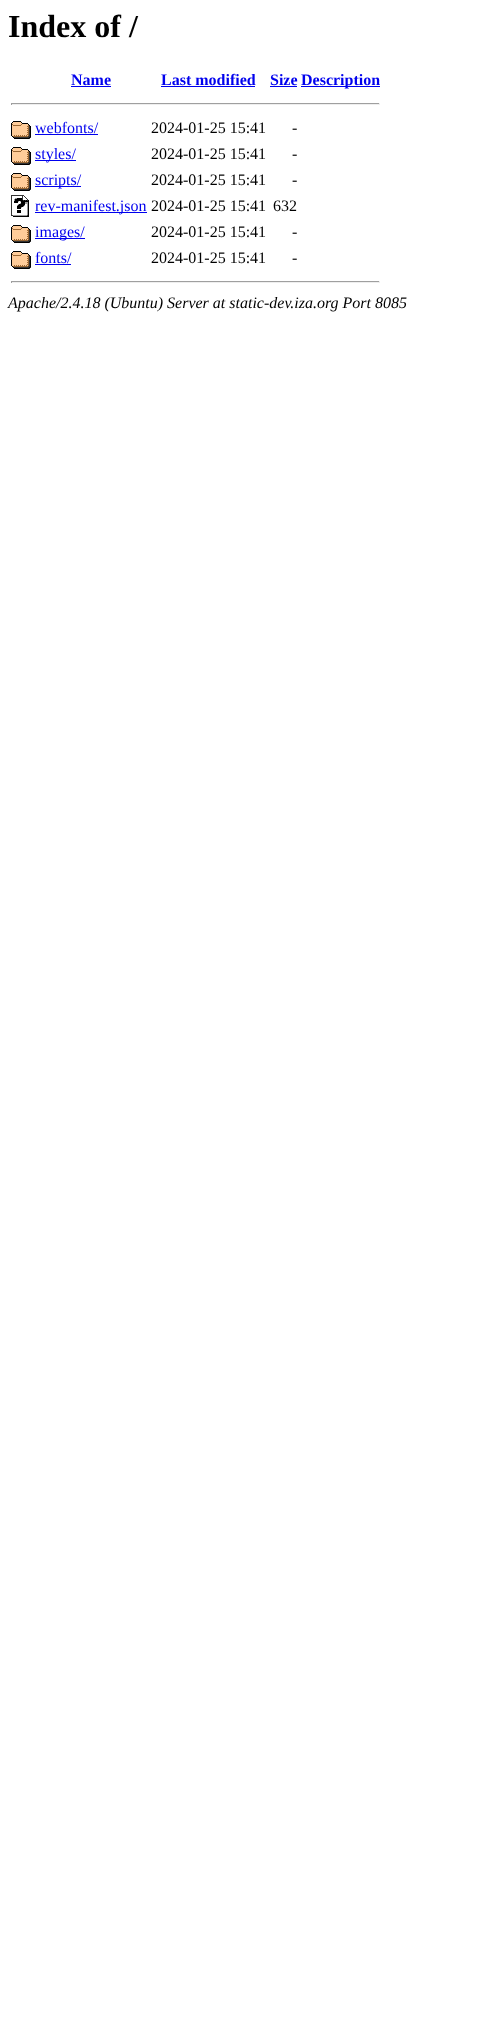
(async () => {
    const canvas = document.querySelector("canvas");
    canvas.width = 498;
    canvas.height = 2033;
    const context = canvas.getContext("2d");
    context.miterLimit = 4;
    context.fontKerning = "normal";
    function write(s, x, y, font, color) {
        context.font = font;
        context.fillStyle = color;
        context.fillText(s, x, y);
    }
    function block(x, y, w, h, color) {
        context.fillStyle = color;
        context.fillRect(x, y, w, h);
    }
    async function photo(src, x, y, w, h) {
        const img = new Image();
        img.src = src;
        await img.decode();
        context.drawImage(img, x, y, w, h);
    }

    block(0, 0, 498, 2033, "rgb(255, 255, 255)");
    write("Index of /", 8, 37, "bold 32px Liberation Serif", "rgb(0, 0, 0)");
    write("Name", 71, 85, "bold 16px Liberation Serif", "rgb(0, 0, 238)");
    block(71, 86, 40, 1, "rgb(0, 0, 238)");
    write("Last modified", 161, 85, "bold 16px Liberation Serif", "rgb(0, 0, 238)");
    block(161, 86, 94, 1, "rgb(0, 0, 238)");
    write("Size", 270, 85, "bold 16px Liberation Serif", "rgb(0, 0, 238)");
    block(270, 86, 27, 1, "rgb(0, 0, 238)");
    block(301, 86, 79, 1, "rgb(0, 0, 238)");
    write("Description", 301, 85, "bold 16px Liberation Serif", "rgb(0, 0, 238)");
    block(11, 103, 369, 1, "rgb(159, 159, 159)");
    block(379, 103, 1, 2, "rgb(238, 238, 238)");
    block(11, 104, 369, 1, "rgb(238, 238, 238)");
    block(11, 103, 1, 2, "rgb(159, 159, 159)");
    await photo("media/1.png", 11, 121, 20, 18);
    write("webfonts/", 35, 133, "16px Liberation Serif", "rgb(0, 0, 238)");
    block(35, 134, 63, 1, "rgb(0, 0, 238)");
    write("2024-01-25 15:41", 151, 133, "16px Liberation Serif", "rgb(0, 0, 0)");
    write("-", 292, 133, "16px Liberation Serif", "rgb(0, 0, 0)");
    await photo("media/1.png", 11, 147, 20, 18);
    block(35, 160, 41, 1, "rgb(0, 0, 238)");
    write("styles/", 35, 159, "16px Liberation Serif", "rgb(0, 0, 238)");
    write("2024-01-25 15:41", 151, 159, "16px Liberation Serif", "rgb(0, 0, 0)");
    write("-", 292, 159, "16px Liberation Serif", "rgb(0, 0, 0)");
    await photo("media/1.png", 11, 173, 20, 18);
    block(35, 186, 46, 1, "rgb(0, 0, 238)");
    write("scripts/", 35, 185, "16px Liberation Serif", "rgb(0, 0, 238)");
    write("2024-01-25 15:41", 151, 185, "16px Liberation Serif", "rgb(0, 0, 0)");
    write("-", 292, 185, "16px Liberation Serif", "rgb(0, 0, 0)");
    await photo("media/2.png", 11, 195, 18, 22);
    block(35, 212, 112, 1, "rgb(0, 0, 238)");
    write("rev-manifest.json", 35, 211, "16px Liberation Serif", "rgb(0, 0, 238)");
    write("2024-01-25 15:41", 151, 211, "16px Liberation Serif", "rgb(0, 0, 0)");
    write("632", 273, 211, "16px Liberation Serif", "rgb(0, 0, 0)");
    await photo("media/1.png", 11, 225, 20, 18);
    block(35, 238, 50, 1, "rgb(0, 0, 238)");
    write("images/", 35, 237, "16px Liberation Serif", "rgb(0, 0, 238)");
    write("2024-01-25 15:41", 151, 237, "16px Liberation Serif", "rgb(0, 0, 0)");
    write("-", 292, 237, "16px Liberation Serif", "rgb(0, 0, 0)");
    await photo("media/1.png", 11, 251, 20, 18);
    write("fonts/", 35, 263, "16px Liberation Serif", "rgb(0, 0, 238)");
    block(35, 264, 36, 1, "rgb(0, 0, 238)");
    write("2024-01-25 15:41", 151, 263, "16px Liberation Serif", "rgb(0, 0, 0)");
    write("-", 292, 263, "16px Liberation Serif", "rgb(0, 0, 0)");
    block(11, 281, 369, 1, "rgb(159, 159, 159)");
    block(379, 281, 1, 2, "rgb(238, 238, 238)");
    block(11, 282, 369, 1, "rgb(238, 238, 238)");
    block(11, 281, 1, 2, "rgb(159, 159, 159)");
    write("Apache/2.4.18 (Ubuntu) Server at static-dev.iza.org Port 8085", 8, 308, "italic 16px Liberation Serif", "rgb(0, 0, 0)");
})();
